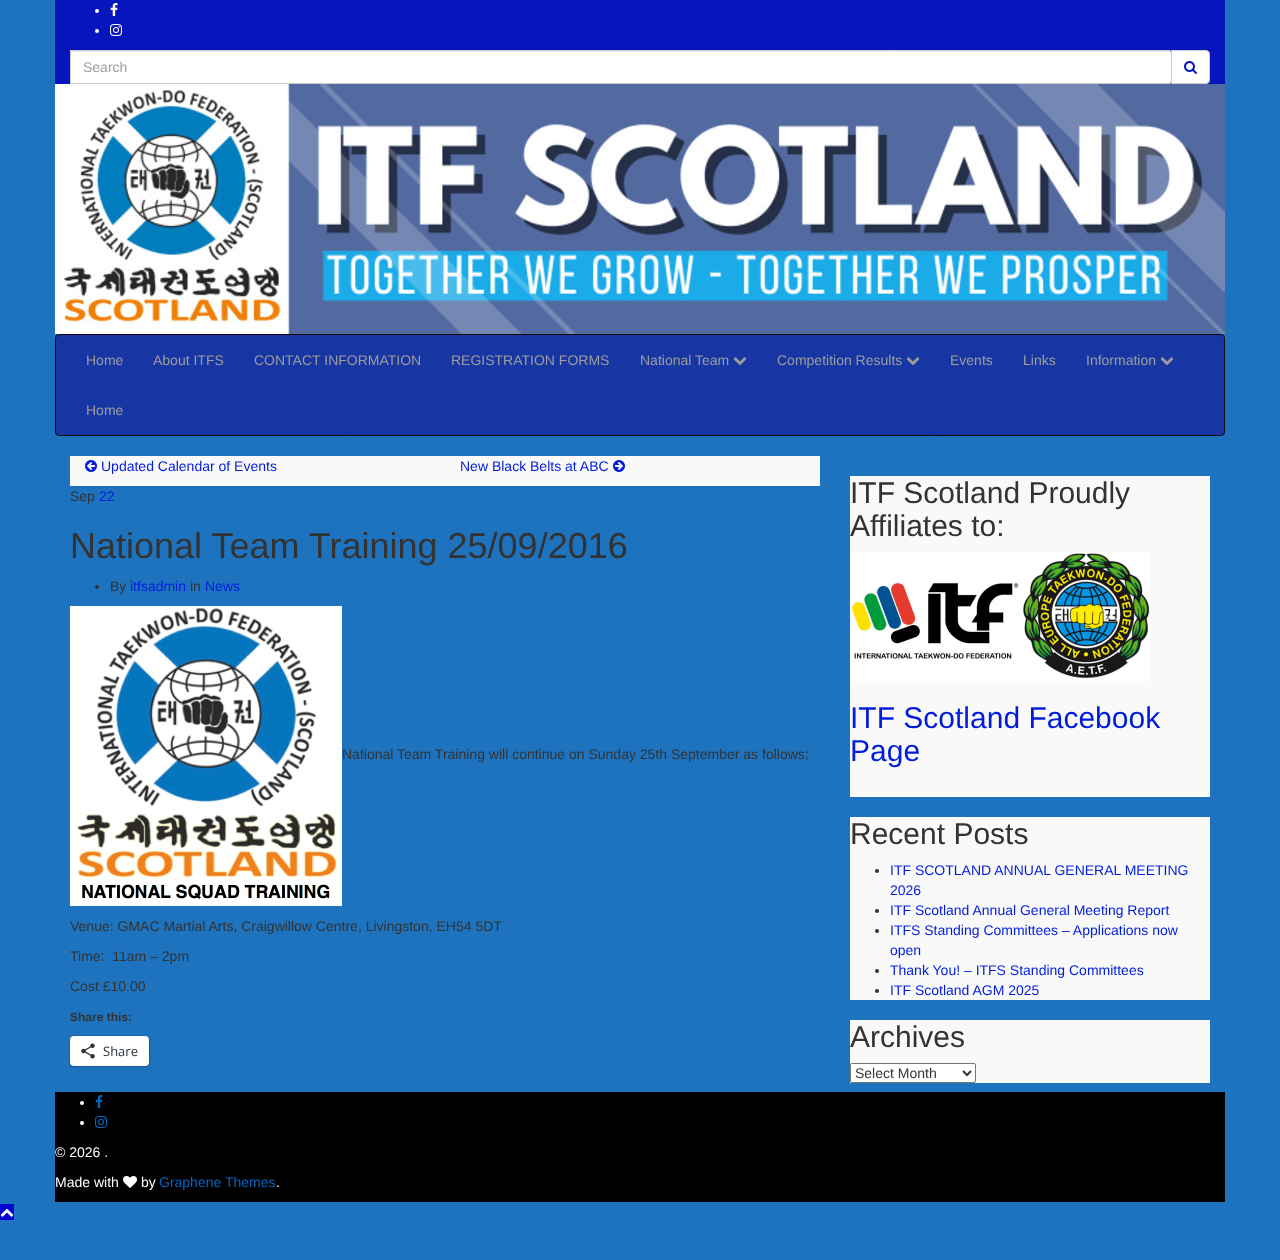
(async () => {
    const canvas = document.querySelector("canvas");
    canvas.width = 1280;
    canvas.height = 1260;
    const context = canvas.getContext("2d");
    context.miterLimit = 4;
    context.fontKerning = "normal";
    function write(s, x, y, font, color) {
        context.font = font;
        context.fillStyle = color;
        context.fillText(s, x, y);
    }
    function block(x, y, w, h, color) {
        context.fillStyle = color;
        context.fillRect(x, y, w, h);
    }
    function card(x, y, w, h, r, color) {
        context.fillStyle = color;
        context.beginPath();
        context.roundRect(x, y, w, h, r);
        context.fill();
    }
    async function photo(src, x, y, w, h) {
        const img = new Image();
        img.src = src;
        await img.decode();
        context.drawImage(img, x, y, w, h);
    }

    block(0, 0, 1280, 1260, "rgb(30, 115, 190)");
    block(55, 0, 1170, 84, "rgb(7, 22, 188)");
    context.fillStyle = "rgb(255, 255, 255)";
    context.beginPath();
    context.arc(97, 11, 2, 0, Math.PI * 2);
    context.fill();
    await photo("media/1.png", 110, 3, 8, 13);
    context.beginPath();
    context.arc(97, 31, 2, 0, Math.PI * 2);
    context.fill();
    await photo("media/2.png", 110, 24, 12, 12);
    context.beginPath();
    context.roundRect(70, 50, 1102, 34, [0, 4, 4, 0]);
    context.fill();
    context.fillStyle = "rgb(236, 236, 236)";
    context.beginPath();
    context.moveTo(71, 52);
    context.lineTo(1168, 52);
    context.bezierCurveTo(1170, 52, 1171, 53, 1171, 55);
    context.bezierCurveTo(1171, 53, 1170, 51, 1168, 51);
    context.lineTo(71, 51);
    context.closePath();
    context.fill();
    context.beginPath();
    context.roundRect(70.5, 50.5, 1101, 33, [0, 3.5, 3.5, 0]);
    context.strokeStyle = "rgb(204, 204, 204)";
    context.stroke();
    write("Search", 83, 72, "14px Liberation Sans", "rgb(157, 157, 157)");
    context.fillStyle = "rgb(255, 255, 255)";
    context.beginPath();
    context.roundRect(1171.5, 50.5, 38, 33, [0, 3.5, 3.5, 0]);
    context.fill();
    context.stroke();
    await photo("media/3.png", 1184, 61, 13, 13);
    await photo("media/4.png", 55, 84, 1170, 250);
    context.fillStyle = "rgb(24, 54, 163)";
    context.beginPath();
    context.roundRect(55.5, 334.5, 1169, 101, 3.5);
    context.fill();
    context.strokeStyle = "rgb(8, 8, 8)";
    context.stroke();
    write("Home", 86, 365, "14px Liberation Sans", "rgb(157, 157, 157)");
    write("About ITFS", 153, 365, "14px Liberation Sans", "rgb(157, 157, 157)");
    write("CONTACT INFORMATION", 254, 365, "14px Liberation Sans", "rgb(157, 157, 157)");
    write("REGISTRATION FORMS", 451, 365, "14px Liberation Sans", "rgb(157, 157, 157)");
    write("National Team", 640, 365, "14px Liberation Sans", "rgb(157, 157, 157)");
    await photo("media/5.png", 733, 357, 14, 9);
    write("Competition Results", 777, 365, "14px Liberation Sans", "rgb(157, 157, 157)");
    await photo("media/5.png", 906, 357, 14, 9);
    write("Events", 950, 365, "14px Liberation Sans", "rgb(157, 157, 157)");
    write("Links", 1023, 365, "14px Liberation Sans", "rgb(157, 157, 157)");
    write("Information", 1086, 365, "14px Liberation Sans", "rgb(157, 157, 157)");
    await photo("media/5.png", 1160, 357, 14, 9);
    write("Home", 86, 415, "14px Liberation Sans", "rgb(157, 157, 157)");
    block(70, 456, 750, 30, "rgb(249, 249, 249)");
    await photo("media/6.png", 85, 460, 12, 12);
    write("Updated Calendar of Events", 101, 471, "14px Liberation Sans", "rgb(0, 29, 219)");
    write("New Black Belts at ABC", 460, 471, "14px Liberation Sans", "rgb(0, 29, 219)");
    await photo("media/7.png", 613, 460, 12, 12);
    write("Sep", 70, 501, "14px Liberation Sans", "rgb(51, 51, 51)");
    write("22", 99, 501, "14px Liberation Sans", "rgb(0, 29, 219)");
    write("National Team Training 25/09/2016", 70, 558, "36px Liberation Sans", "rgb(51, 51, 51)");
    context.beginPath();
    context.arc(97, 587, 2, 0, Math.PI * 2);
    context.fill();
    write("By", 110, 591, "14px Liberation Sans", "rgb(51, 51, 51)");
    write("itfsadmin", 130, 591, "14px Liberation Sans", "rgb(0, 29, 219)");
    write("in", 190, 591, "14px Liberation Sans", "rgb(51, 51, 51)");
    write("News", 205, 591, "14px Liberation Sans", "rgb(0, 29, 219)");
    await photo("media/8.png", 70, 606, 272, 300);
    write("National Team Training will continue on Sunday 25th September as follows;", 342, 759, "14px Liberation Sans", "rgb(51, 51, 51)");
    write("Venue: GMAC Martial Arts, Craigwillow Centre, Livingston, EH54 5DT", 70, 931, "14px Liberation Sans", "rgb(51, 51, 51)");
    write("Time:  11am – 2pm", 70, 961, "14px Liberation Sans", "rgb(51, 51, 51)");
    write("Cost £10.00", 70, 991, "14px Liberation Sans", "rgb(51, 51, 51)");
    write("Share this:", 70, 1021, "bold 12px Liberation Sans", "rgb(51, 51, 51)");
    context.beginPath();
    context.roundRect(69.5, 1035.5, 80, 31, 4.5);
    context.strokeStyle = "rgb(26, 101, 167)";
    context.stroke();
    context.fillStyle = "rgba(0, 0, 0, 0.12)";
    context.filter = "blur(1px)";
    context.beginPath();
    context.roundRect(70, 1037, 79, 30, 4);
    context.fill();
    context.filter = "none";
    card(70, 1036, 79, 30, 4, "rgb(255, 255, 255)");
    await photo("media/9.png", 81, 1043, 14, 16);
    write("Share", 103, 1056, "13px Open Sans", "rgb(44, 51, 56)");
    block(850, 476, 360, 321, "rgb(249, 249, 249)");
    write("ITF Scotland Proudly", 850, 503, "30px Liberation Sans", "rgb(51, 51, 51)");
    write("Affiliates to:", 850, 536, "30px Liberation Sans", "rgb(51, 51, 51)");
    await photo("media/10.png", 850, 552, 300, 129);
    write("ITF Scotland Facebook", 850, 728, "30px Liberation Sans", "rgb(0, 29, 219)");
    write("Page", 850, 761, "30px Liberation Sans", "rgb(0, 29, 219)");
    block(850, 817, 360, 183, "rgb(249, 249, 249)");
    write("Recent Posts", 850, 844, "30px Liberation Sans", "rgb(51, 51, 51)");
    context.beginPath();
    context.arc(877, 871, 2, 0, Math.PI * 2);
    context.fill();
    write("ITF SCOTLAND ANNUAL GENERAL MEETING", 890, 875, "14px Liberation Sans", "rgb(0, 29, 219)");
    write("2026", 890, 895, "14px Liberation Sans", "rgb(0, 29, 219)");
    context.fillStyle = "rgb(51, 51, 51)";
    context.beginPath();
    context.arc(877, 911, 2, 0, Math.PI * 2);
    context.fill();
    write("ITF Scotland Annual General Meeting Report", 890, 915, "14px Liberation Sans", "rgb(0, 29, 219)");
    context.fillStyle = "rgb(51, 51, 51)";
    context.beginPath();
    context.arc(877, 931, 2, 0, Math.PI * 2);
    context.fill();
    write("ITFS Standing Committees – Applications now", 890, 935, "14px Liberation Sans", "rgb(0, 29, 219)");
    write("open", 890, 955, "14px Liberation Sans", "rgb(0, 29, 219)");
    context.fillStyle = "rgb(51, 51, 51)";
    context.beginPath();
    context.arc(877, 971, 2, 0, Math.PI * 2);
    context.fill();
    write("Thank You! – ITFS Standing Committees", 890, 975, "14px Liberation Sans", "rgb(0, 29, 219)");
    context.fillStyle = "rgb(51, 51, 51)";
    context.beginPath();
    context.arc(877, 991, 2, 0, Math.PI * 2);
    context.fill();
    write("ITF Scotland AGM 2025", 890, 995, "14px Liberation Sans", "rgb(0, 29, 219)");
    block(850, 1020, 360, 63, "rgb(249, 249, 249)");
    write("Archives", 850, 1047, "30px Liberation Sans", "rgb(51, 51, 51)");
    context.fillStyle = "rgb(255, 255, 255)";
    context.beginPath();
    context.roundRect(850.5, 1063.5, 125, 19, 1.5);
    context.fill();
    context.strokeStyle = "rgb(118, 118, 118)";
    context.stroke();
    context.beginPath();
    context.moveTo(963, 1071);
    context.lineTo(967, 1075);
    context.lineTo(971, 1071);
    context.strokeStyle = "rgb(51, 51, 51)";
    context.lineWidth = 2;
    context.stroke();
    write("Select Month", 855, 1078, "14px Liberation Sans", "rgb(51, 51, 51)");
    block(55, 1092, 1170, 110, "rgb(0, 0, 0)");
    context.fillStyle = "rgb(255, 255, 255)";
    context.beginPath();
    context.arc(82, 1103, 2, 0, Math.PI * 2);
    context.fill();
    await photo("media/11.png", 95, 1095, 8, 13);
    context.beginPath();
    context.arc(82, 1123, 2, 0, Math.PI * 2);
    context.fill();
    await photo("media/12.png", 95, 1116, 12, 12);
    write("© 2026 .", 55, 1157, "14px Liberation Sans", "rgb(255, 255, 255)");
    write("Made with", 55, 1187, "14px Liberation Sans", "rgb(255, 255, 255)");
    await photo("media/13.png", 123, 1176, 14, 12);
    write("by", 141, 1187, "14px Liberation Sans", "rgb(255, 255, 255)");
    write("Graphene Themes", 159, 1187, "14px Liberation Sans", "rgb(0, 102, 191)");
    write(".", 276, 1187, "14px Liberation Sans", "rgb(255, 255, 255)");
    block(0, 1204, 14, 16, "rgb(2, 5, 209)");
    await photo("media/14.png", 0, 1208, 14, 9);
})();
